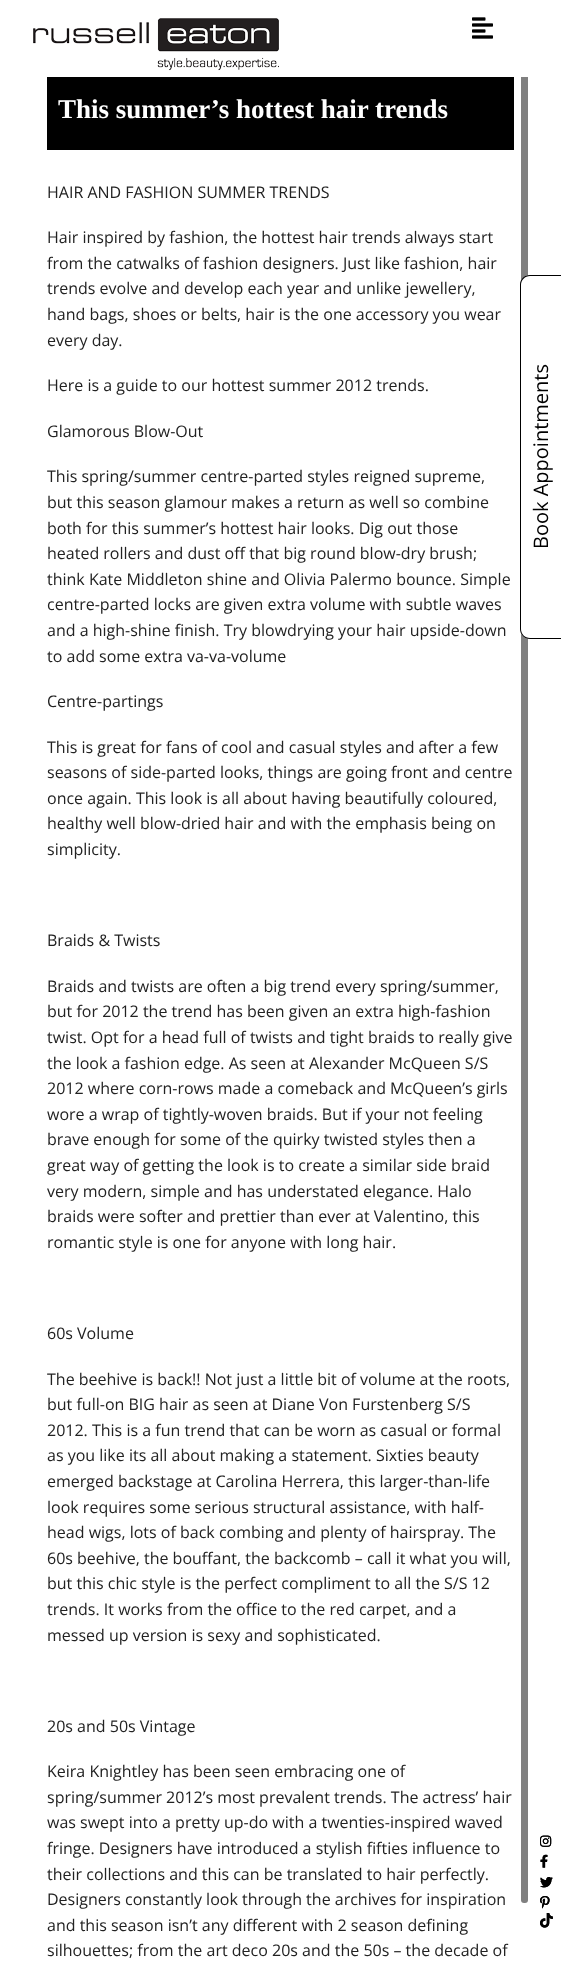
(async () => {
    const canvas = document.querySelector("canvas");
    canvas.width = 561;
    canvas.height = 1969;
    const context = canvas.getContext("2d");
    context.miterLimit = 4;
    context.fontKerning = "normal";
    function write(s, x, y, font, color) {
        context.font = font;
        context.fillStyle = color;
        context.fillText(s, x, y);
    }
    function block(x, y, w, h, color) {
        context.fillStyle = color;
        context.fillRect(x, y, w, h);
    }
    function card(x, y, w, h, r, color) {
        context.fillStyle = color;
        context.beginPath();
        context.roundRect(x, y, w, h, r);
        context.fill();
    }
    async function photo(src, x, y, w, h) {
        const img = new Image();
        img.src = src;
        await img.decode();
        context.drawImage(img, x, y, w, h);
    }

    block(0, 0, 561, 1969, "rgb(255, 255, 255)");
    card(521, 26, 7, 1877, 3, "rgb(128, 128, 128)");
    block(521, 26, 7, 51, "rgb(255, 255, 255)");
    await photo("media/1.png", 33, 18, 246, 53);
    await photo("media/2.png", 472, 17, 21, 22);
    block(47, 77, 467, 73, "rgb(0, 0, 0)");
    write("This summer’s hottest hair trends", 58, 118, "bold 27px Liberation Serif", "rgb(255, 255, 255)");
    write("HAIR AND FASHION SUMMER TRENDS", 47, 198, "16px Open Sans", "rgb(34, 34, 34)");
    write("Hair inspired by fashion, the hottest hair trends always start", 47, 243, "16px Open Sans", "rgb(34, 34, 34)");
    write("from the catwalks of fashion designers. Just like fashion, hair", 47, 269, "16px Open Sans", "rgb(34, 34, 34)");
    write("trends evolve and develop each year and unlike jewellery,", 47, 294, "16px Open Sans", "rgb(34, 34, 34)");
    write("hand bags, shoes or belts, hair is the one accessory you wear", 47, 320, "16px Open Sans", "rgb(34, 34, 34)");
    write("every day.", 47, 346, "16px Open Sans", "rgb(34, 34, 34)");
    write("Here is a guide to our hottest summer 2012 trends.", 47, 391, "16px Open Sans", "rgb(34, 34, 34)");
    write("Glamorous Blow-Out", 47, 437, "16px Open Sans", "rgb(34, 34, 34)");
    write("This spring/summer centre-parted styles reigned supreme,", 47, 482, "16px Open Sans", "rgb(34, 34, 34)");
    write("but this season glamour makes a return as well so combine", 47, 508, "16px Open Sans", "rgb(34, 34, 34)");
    write("both for this summer’s hottest hair looks. Dig out those", 47, 534, "16px Open Sans", "rgb(34, 34, 34)");
    write("heated rollers and dust off that big round blow-dry brush;", 47, 559, "16px Open Sans", "rgb(34, 34, 34)");
    write("think Kate Middleton shine and Olivia Palermo bounce. Simple", 47, 585, "16px Open Sans", "rgb(34, 34, 34)");
    write("centre-parted locks are given extra volume with subtle waves", 47, 610, "16px Open Sans", "rgb(34, 34, 34)");
    write("and a high-shine finish. Try blowdrying your hair upside-down", 47, 636, "16px Open Sans", "rgb(34, 34, 34)");
    write("to add some extra va-va-volume", 47, 662, "16px Open Sans", "rgb(34, 34, 34)");
    write("Centre-partings", 47, 707, "16px Open Sans", "rgb(34, 34, 34)");
    write("This is great for fans of cool and casual styles and after a few", 47, 753, "16px Open Sans", "rgb(34, 34, 34)");
    write("seasons of side-parted looks, things are going front and centre", 47, 778, "16px Open Sans", "rgb(34, 34, 34)");
    write("once again. This look is all about having beautifully coloured,", 47, 804, "16px Open Sans", "rgb(34, 34, 34)");
    write("healthy well blow-dried hair and with the emphasis being on", 47, 829, "16px Open Sans", "rgb(34, 34, 34)");
    write("simplicity.", 47, 855, "16px Open Sans", "rgb(34, 34, 34)");
    write("Braids & Twists", 47, 946, "16px Open Sans", "rgb(34, 34, 34)");
    write("Braids and twists are often a big trend every spring/summer,", 47, 992, "16px Open Sans", "rgb(34, 34, 34)");
    write("but for 2012 the trend has been given an extra high-fashion", 47, 1017, "16px Open Sans", "rgb(34, 34, 34)");
    write("twist. Opt for a head full of twists and tight braids to really give", 47, 1043, "16px Open Sans", "rgb(34, 34, 34)");
    write("the look a fashion edge. As seen at Alexander McQueen S/S", 47, 1069, "16px Open Sans", "rgb(34, 34, 34)");
    write("2012 where corn-rows made a comeback and McQueen’s girls", 47, 1094, "16px Open Sans", "rgb(34, 34, 34)");
    write("wore a wrap of tightly-woven braids. But if your not feeling", 47, 1120, "16px Open Sans", "rgb(34, 34, 34)");
    write("brave enough for some of the quirky twisted styles then a", 47, 1145, "16px Open Sans", "rgb(34, 34, 34)");
    write("great way of getting the look is to create a similar side braid", 47, 1171, "16px Open Sans", "rgb(34, 34, 34)");
    write("very modern, simple and has understated elegance. Halo", 47, 1197, "16px Open Sans", "rgb(34, 34, 34)");
    write("braids were softer and prettier than ever at Valentino, this", 47, 1222, "16px Open Sans", "rgb(34, 34, 34)");
    write("romantic style is one for anyone with long hair.", 47, 1248, "16px Open Sans", "rgb(34, 34, 34)");
    write("60s Volume", 47, 1339, "16px Open Sans", "rgb(34, 34, 34)");
    write("The beehive is back!! Not just a little bit of volume at the roots,", 47, 1385, "16px Open Sans", "rgb(34, 34, 34)");
    write("but full-on BIG hair as seen at Diane Von Furstenberg S/S", 47, 1410, "16px Open Sans", "rgb(34, 34, 34)");
    write("2012. This is a fun trend that can be worn as casual or formal", 47, 1436, "16px Open Sans", "rgb(34, 34, 34)");
    write("as you like its all about making a statement. Sixties beauty", 47, 1461, "16px Open Sans", "rgb(34, 34, 34)");
    write("emerged backstage at Carolina Herrera, this larger-than-life", 47, 1487, "16px Open Sans", "rgb(34, 34, 34)");
    write("look requires some serious structural assistance, with half-", 47, 1513, "16px Open Sans", "rgb(34, 34, 34)");
    write("head wigs, lots of back combing and plenty of hairspray. The", 47, 1538, "16px Open Sans", "rgb(34, 34, 34)");
    write("60s beehive, the bouffant, the backcomb – call it what you will,", 47, 1564, "16px Open Sans", "rgb(34, 34, 34)");
    write("but this chic style is the perfect compliment to all the S/S 12", 47, 1589, "16px Open Sans", "rgb(34, 34, 34)");
    write("trends. It works from the office to the red carpet, and a", 47, 1615, "16px Open Sans", "rgb(34, 34, 34)");
    write("messed up version is sexy and sophisticated.", 47, 1641, "16px Open Sans", "rgb(34, 34, 34)");
    write("20s and 50s Vintage", 47, 1732, "16px Open Sans", "rgb(34, 34, 34)");
    write("Keira Knightley has been seen embracing one of", 47, 1777, "16px Open Sans", "rgb(34, 34, 34)");
    write("spring/summer 2012’s most prevalent trends. The actress’ hair", 47, 1803, "16px Open Sans", "rgb(34, 34, 34)");
    write("was swept into a pretty up-do with a twenties-inspired waved", 47, 1828, "16px Open Sans", "rgb(34, 34, 34)");
    write("fringe. Designers have introduced a stylish fifties influence to", 47, 1854, "16px Open Sans", "rgb(34, 34, 34)");
    write("their collections and this can be translated to hair perfectly.", 47, 1880, "16px Open Sans", "rgb(34, 34, 34)");
    write("Designers constantly look through the archives for inspiration", 47, 1905, "16px Open Sans", "rgb(34, 34, 34)");
    write("and this season isn’t any different with 2 season defining", 47, 1931, "16px Open Sans", "rgb(34, 34, 34)");
    write("silhouettes; from the art deco 20s and the 50s – the decade of", 47, 1956, "16px Open Sans", "rgb(34, 34, 34)");
    context.fillStyle = "rgb(255, 255, 255)";
    context.beginPath();
    context.moveTo(520, 629);
    context.lineTo(520, 285);
    context.bezierCurveTo(520, 279, 524, 275, 530, 275);
    context.lineTo(561, 275);
    context.lineTo(561, 639);
    context.lineTo(530, 639);
    context.bezierCurveTo(524, 639, 520, 634, 520, 629);
    context.closePath();
    context.fill();
    context.fillStyle = "rgb(0, 0, 0)";
    context.beginPath();
    context.moveTo(520, 629);
    context.lineTo(520, 285);
    context.bezierCurveTo(520, 279, 524, 275, 530, 275);
    context.lineTo(561, 275);
    context.lineTo(561, 639);
    context.lineTo(530, 639);
    context.bezierCurveTo(524, 639, 520, 634, 520, 629);
    context.closePath();
    context.moveTo(521, 629);
    context.lineTo(521, 285);
    context.bezierCurveTo(521, 280, 525, 276, 530, 276);
    context.lineTo(561, 276);
    context.lineTo(561, 638);
    context.lineTo(530, 638);
    context.bezierCurveTo(525, 638, 521, 634, 521, 629);
    context.closePath();
    context.fill("evenodd");
    context.font = "20px Open Sans";
    context.save();
    context.translate(548, 549);
    context.rotate(-90 * Math.PI / 180);
    context.fillText("Book Appointments", 0, 0);
    context.restore();
    await photo("media/3.png", 540, 1835, 12, 12);
    await photo("media/4.png", 540, 1854, 8, 14);
    await photo("media/5.png", 540, 1877, 13, 11);
    await photo("media/6.png", 540, 1896, 10, 13);
    await photo("media/7.png", 540, 1913, 13, 15);
    await photo("media/8.png", 540, 1835, 12, 12);
    await photo("media/9.png", 540, 1854, 8, 14);
    await photo("media/10.png", 540, 1877, 13, 11);
    await photo("media/11.png", 540, 1896, 10, 13);
    await photo("media/12.png", 540, 1913, 13, 15);
})();
